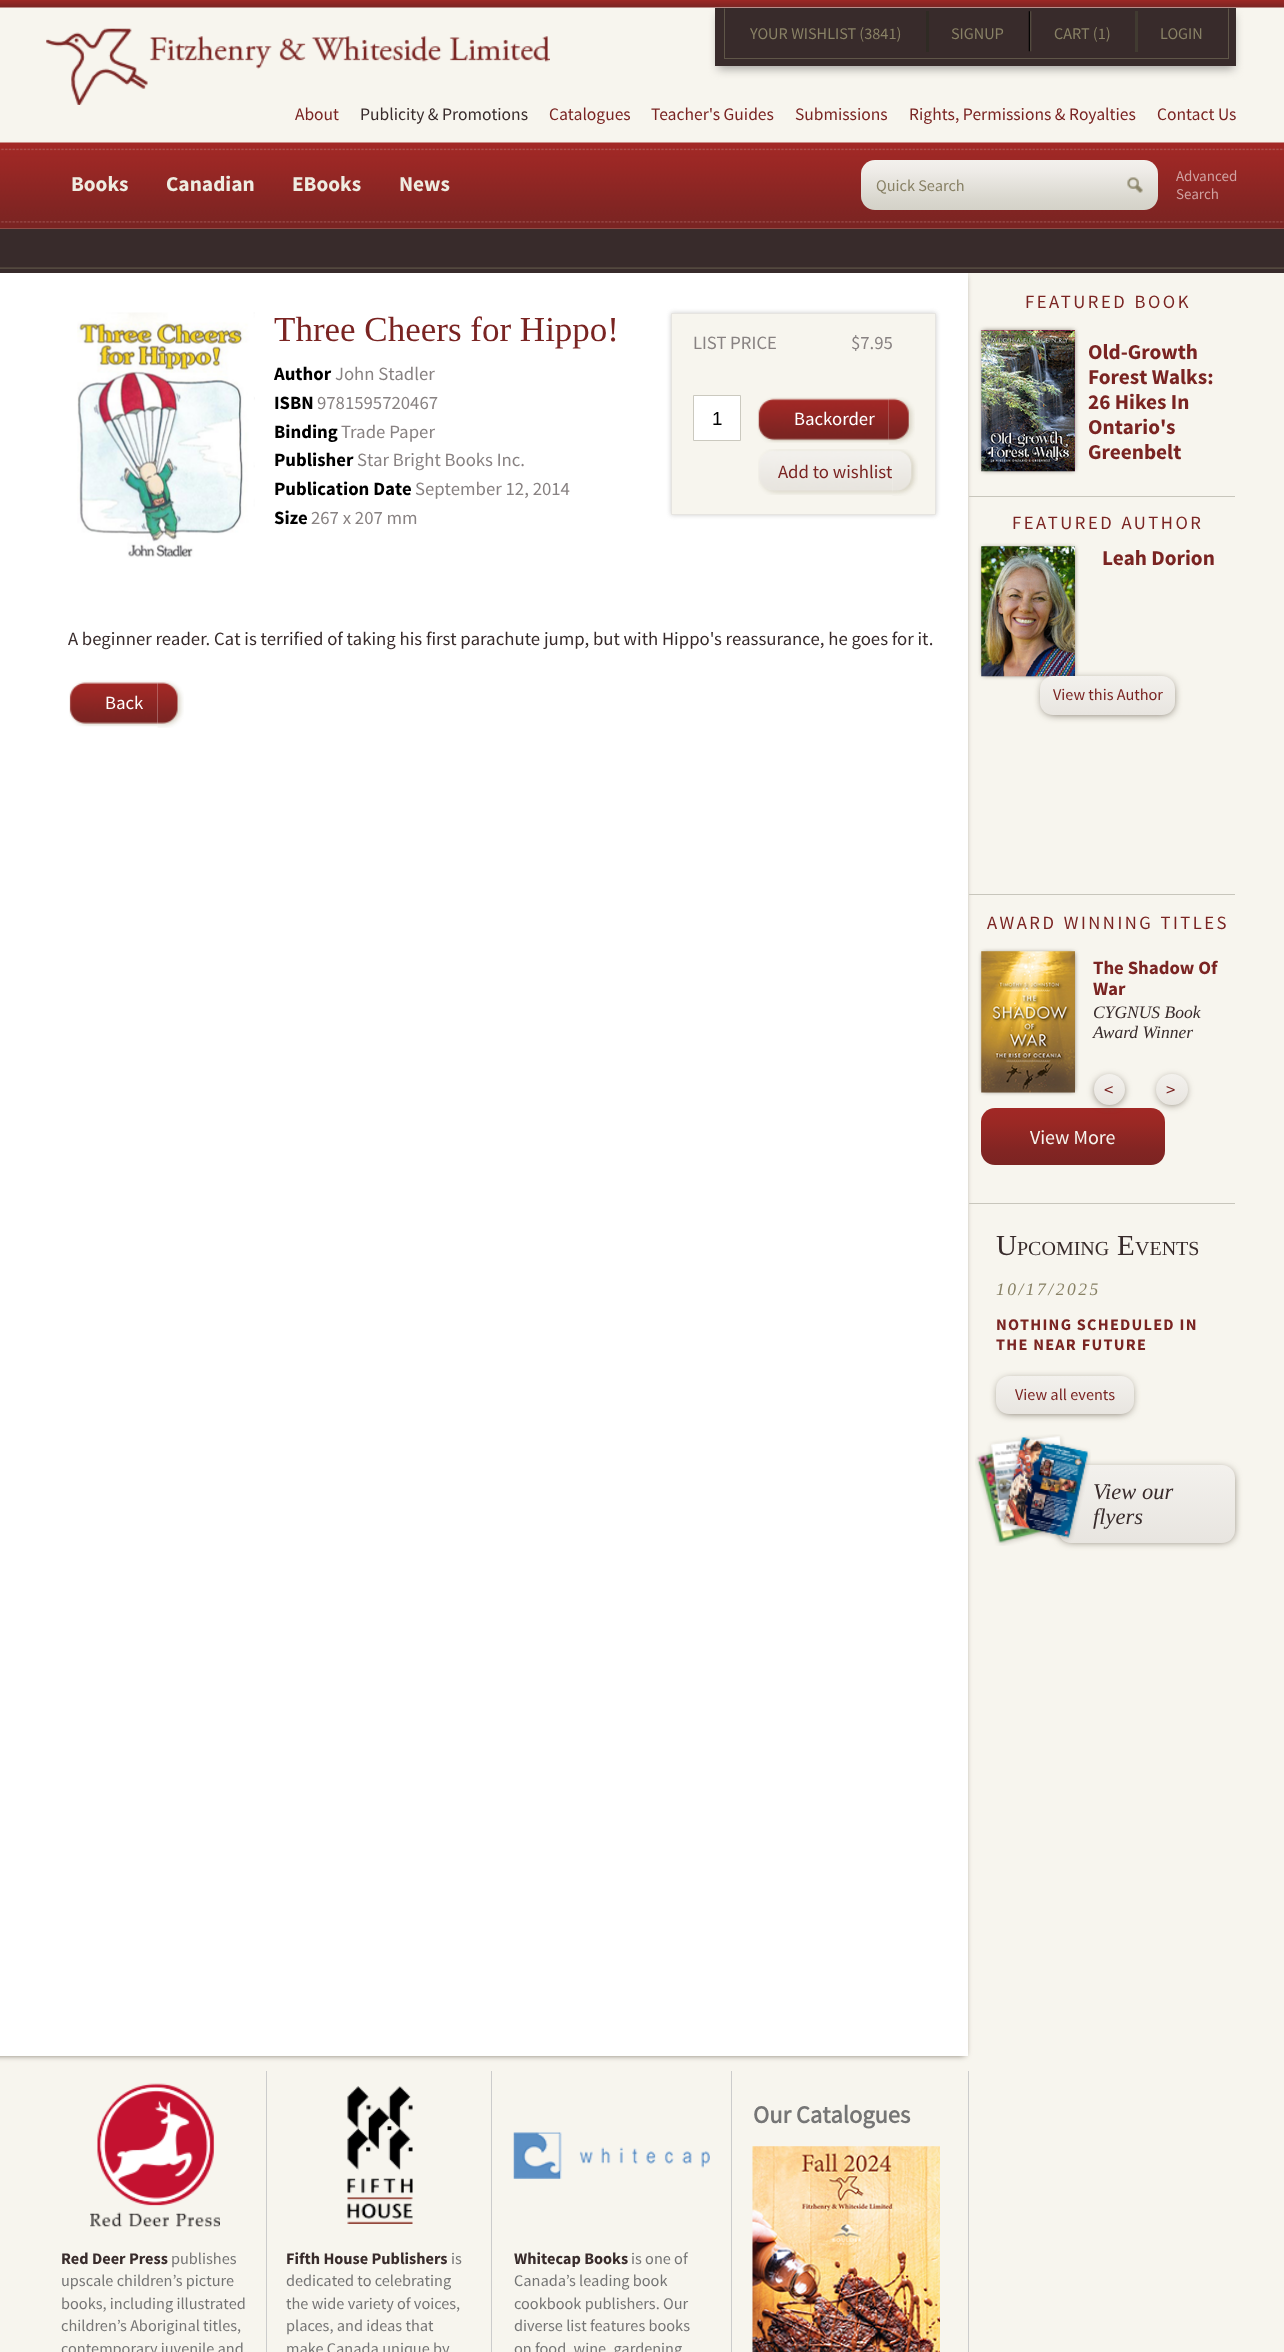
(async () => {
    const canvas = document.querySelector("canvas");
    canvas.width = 1284;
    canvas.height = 2352;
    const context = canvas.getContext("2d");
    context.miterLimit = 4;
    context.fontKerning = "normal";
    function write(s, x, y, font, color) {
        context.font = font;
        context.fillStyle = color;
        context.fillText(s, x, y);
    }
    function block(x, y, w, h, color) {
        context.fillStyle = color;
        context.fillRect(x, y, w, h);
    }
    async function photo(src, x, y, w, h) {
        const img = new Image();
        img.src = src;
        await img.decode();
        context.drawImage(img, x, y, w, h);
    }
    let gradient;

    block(0, 0, 1284, 2352, "rgb(247, 245, 238)");
    await photo("media/1.png", 0, 0, 1284, 8);
    await photo("media/2.png", 46, 28, 504, 77);
    context.fillStyle = "rgb(165, 163, 159)";
    context.filter = "blur(5px)";
    context.beginPath();
    context.rect(718, 15, 516, 54);
    context.fill();
    context.filter = "none";
    block(715, 8, 521, 58, "rgb(56, 43, 43)");
    context.fillStyle = "rgb(95, 86, 72)";
    context.beginPath();
    context.moveTo(1229, 8);
    context.lineTo(1229, 59);
    context.lineTo(1228, 58);
    context.lineTo(1228, 9);
    context.closePath();
    context.fill();
    block(724, 58, 505, 1, "rgb(95, 86, 72)");
    context.beginPath();
    context.moveTo(724, 59);
    context.lineTo(724, 8);
    context.lineTo(725, 9);
    context.lineTo(725, 58);
    context.closePath();
    context.fill();
    write("YOUR WISHLIST (3841)", 750, 39, "16.25px Source Sans Pro", "rgb(136, 129, 101)");
    block(926, 11, 3, 41, "rgb(47, 43, 36)");
    write("SIGNUP", 951, 39, "16.25px Source Sans Pro", "rgb(136, 129, 101)");
    await photo("media/3.png", 1028, 11, 4, 41);
    write("CART (1)", 1054, 39, "16.25px Source Sans Pro", "rgb(136, 129, 101)");
    block(1135, 11, 3, 41, "rgb(65, 59, 49)");
    write("LOGIN", 1160, 39, "16.25px Source Sans Pro", "rgb(136, 129, 101)");
    write("About", 295, 120, "17.5px Source Sans Pro", "rgb(122, 36, 34)");
    write("Publicity & Promotions", 360, 120, "17.5px Source Sans Pro", "rgb(56, 43, 43)");
    write("Catalogues", 549, 120, "17.5px Source Sans Pro", "rgb(122, 36, 34)");
    write("Teacher's Guides", 651, 120, "17.5px Source Sans Pro", "rgb(122, 36, 34)");
    write("Submissions", 795, 120, "17.5px Source Sans Pro", "rgb(122, 36, 34)");
    write("Rights, Permissions & Royalties", 909, 120, "17.5px Source Sans Pro", "rgb(122, 36, 34)");
    write("Contact Us", 1157, 120, "17.5px Source Sans Pro", "rgb(122, 36, 34)");
    context.fillStyle = "rgb(197, 192, 171)";
    context.filter = "blur(4px)";
    context.beginPath();
    context.rect(-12, 150, 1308, 84);
    context.fill();
    context.filter = "none";
    await photo("media/4.png", 0, 142, 1284, 87);
    write("Books", 71, 191, "bold 21.25px Source Sans Pro", "rgb(239, 236, 225)");
    write("Canadian", 166, 191, "bold 21.25px Source Sans Pro", "rgb(239, 236, 225)");
    write("EBooks", 292, 191, "bold 21.25px Source Sans Pro", "rgb(239, 236, 225)");
    write("News", 399, 191, "bold 21.25px Source Sans Pro", "rgb(239, 236, 225)");
    gradient = context.createLinearGradient(1009, 160, 1009, 210);
    gradient.addColorStop(0, "rgb(243, 241, 237)");
    gradient.addColorStop(0.23, "rgb(238, 235, 231)");
    gradient.addColorStop(0.79, "rgb(217, 215, 206)");
    gradient.addColorStop(1, "rgb(212, 210, 200)");
    context.fillStyle = gradient;
    context.beginPath();
    context.roundRect(861, 160, 297, 50, 14);
    context.fill();
    write("Quick Search", 876, 191, "16.25px Source Sans Pro", "rgb(136, 129, 101)");
    await photo("media/5.png", 1127, 177, 16, 16);
    write("Advanced", 1176, 181, "15px Source Sans Pro", "rgb(208, 162, 161)");
    write("Search", 1176, 199, "15px Source Sans Pro", "rgb(208, 162, 161)");
    context.fillStyle = "rgb(95, 86, 72)";
    context.filter = "blur(3px)";
    context.beginPath();
    context.rect(-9, 276, 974, 1779);
    context.fill();
    context.filter = "none";
    block(0, 229, 1284, 44, "rgb(56, 43, 43)");
    await photo("media/6.png", 0, 267, 1284, 2);
    block(0, 273, 968, 1783, "rgb(255, 255, 255)");
    await photo("media/7.png", 77, 312, 178, 246);
    write("Three Cheers for Hippo!", 274, 341, "35px Liberation Serif", "rgb(122, 36, 34)");
    write("Author", 274, 380, "bold 18.75px Source Sans Pro", "rgb(0, 0, 0)");
    write("John Stadler", 335, 380, "18.75px Source Sans Pro", "rgb(136, 130, 130)");
    write("ISBN", 274, 409, "bold 18.75px Source Sans Pro", "rgb(0, 0, 0)");
    write("9781595720467", 317, 409, "18.75px Source Sans Pro", "rgb(136, 130, 130)");
    write("Binding", 274, 438, "bold 18.75px Source Sans Pro", "rgb(0, 0, 0)");
    write("Trade Paper", 341, 438, "18.75px Source Sans Pro", "rgb(136, 130, 130)");
    write("Publisher", 274, 466, "bold 18.75px Source Sans Pro", "rgb(0, 0, 0)");
    write("Star Bright Books Inc.", 357, 466, "18.75px Source Sans Pro", "rgb(136, 130, 130)");
    write("Publication Date", 274, 495, "bold 18.75px Source Sans Pro", "rgb(0, 0, 0)");
    write("September 12, 2014", 415, 495, "18.75px Source Sans Pro", "rgb(136, 130, 130)");
    write("Size", 274, 524, "bold 18.75px Source Sans Pro", "rgb(0, 0, 0)");
    write("267 x 207 mm", 311, 524, "18.75px Source Sans Pro", "rgb(136, 130, 130)");
    context.fillStyle = "rgb(204, 204, 204)";
    context.filter = "blur(2.5px)";
    context.beginPath();
    context.rect(671, 313, 265, 202);
    context.fill();
    context.filter = "none";
    context.fillStyle = "rgb(247, 245, 238)";
    context.beginPath();
    context.rect(671.5, 313.5, 264, 201);
    context.fill();
    context.strokeStyle = "rgb(230, 228, 224)";
    context.stroke();
    write("LIST PRICE", 693, 349, "18.75px Source Sans Pro", "rgb(136, 130, 130)");
    write("$7.95", 851, 349, "18.75px Source Sans Pro", "rgb(136, 130, 130)");
    context.fillStyle = "rgb(255, 255, 255)";
    context.beginPath();
    context.rect(693.5, 395.5, 47, 45);
    context.fill();
    context.strokeStyle = "rgb(203, 201, 191)";
    context.stroke();
    write("1", 712, 425, "18.75px Liberation Sans", "rgb(0, 0, 0)");
    await photo("media/8.png", 757, 397, 132, 46);
    write("Backorder", 794, 425, "18.75px Source Sans Pro", "rgb(255, 255, 255)");
    await photo("media/9.png", 888, 397, 27, 48);
    await photo("media/10.png", 758, 449, 135, 46);
    write("Add to wishlist", 778, 478, "18.75px Source Sans Pro", "rgb(122, 36, 34)");
    await photo("media/11.png", 892, 449, 26, 47);
    write("A beginner reader. Cat is terrified of taking his first parachute jump, but with Hippo's reassurance, he goes for it.", 68, 645, "18.75px Source Sans Pro", "rgb(56, 43, 43)");
    await photo("media/12.png", 69, 680, 89, 47);
    write("Back", 105, 709, "18.75px Source Sans Pro", "rgb(255, 255, 255)");
    await photo("media/13.png", 157, 680, 27, 48);
    block(969, 496, 266, 1, "rgb(200, 198, 188)");
    context.letterSpacing = "2.5px";
    context.wordSpacing = "1px";
    write("FEATURED BOOK", 1025, 308, "18.75px Source Sans Pro", "rgb(122, 36, 34)");
    context.fillStyle = "rgb(95, 86, 72)";
    context.filter = "blur(2.5px)";
    context.beginPath();
    context.rect(983, 331, 91, 139);
    context.fill();
    context.filter = "none";
    await photo("media/14.png", 981, 330, 94, 142);
    context.letterSpacing = "0px";
    context.wordSpacing = "0px";
    write("Old-Growth", 1088, 359, "bold 21.25px Source Sans Pro", "rgb(122, 36, 34)");
    write("Forest Walks:", 1088, 384, "bold 21.25px Source Sans Pro", "rgb(122, 36, 34)");
    write("26 Hikes In", 1088, 409, "bold 21.25px Source Sans Pro", "rgb(122, 36, 34)");
    write("Ontario's", 1088, 434, "bold 21.25px Source Sans Pro", "rgb(122, 36, 34)");
    write("Greenbelt", 1088, 459, "bold 21.25px Source Sans Pro", "rgb(122, 36, 34)");
    block(969, 894, 266, 1, "rgb(200, 198, 188)");
    context.letterSpacing = "2.5px";
    context.wordSpacing = "1px";
    write("FEATURED AUTHOR", 1012, 529, "18.75px Source Sans Pro", "rgb(122, 36, 34)");
    context.fillStyle = "rgb(95, 86, 72)";
    context.filter = "blur(2.5px)";
    context.beginPath();
    context.rect(983, 548, 91, 127);
    context.fill();
    context.filter = "none";
    await photo("media/15.png", 981, 546, 94, 131);
    context.letterSpacing = "0px";
    context.wordSpacing = "0px";
    write("Leah Dorion", 1102, 565, "bold 21.25px Source Sans Pro", "rgb(122, 36, 34)");
    context.fillStyle = "rgb(95, 86, 72)";
    context.filter = "blur(4px)";
    context.beginPath();
    context.roundRect(1043, 680, 130, 34, 10);
    context.fill();
    context.filter = "none";
    gradient = context.createLinearGradient(1108, 676, 1108, 715);
    gradient.addColorStop(0, "rgb(243, 241, 237)");
    gradient.addColorStop(1, "rgb(232, 229, 224)");
    context.fillStyle = gradient;
    context.beginPath();
    context.roundRect(1040, 676, 135, 39, 13);
    context.fill();
    write("View this Author", 1053, 700, "16.25px Source Sans Pro", "rgb(122, 36, 34)");
    block(969, 1203, 266, 1, "rgb(200, 198, 188)");
    context.letterSpacing = "2.5px";
    context.wordSpacing = "1px";
    write("AWARD WINNING TITLES", 987, 929, "18.75px Source Sans Pro", "rgb(122, 36, 34)");
    context.fillStyle = "rgb(95, 86, 72)";
    context.filter = "blur(2.5px)";
    context.beginPath();
    context.rect(983, 953, 91, 138);
    context.fill();
    context.filter = "none";
    await photo("media/16.png", 981, 951, 94, 142);
    context.letterSpacing = "0px";
    context.wordSpacing = "0px";
    write("The Shadow Of", 1093, 974, "bold 18.75px Source Sans Pro", "rgb(122, 36, 34)");
    write("War", 1093, 995, "bold 18.75px Source Sans Pro", "rgb(122, 36, 34)");
    write("CYGNUS Book", 1093, 1018, "italic 17.5px Liberation Serif", "rgb(56, 43, 43)");
    write("Award Winner", 1093, 1038, "italic 17.5px Liberation Serif", "rgb(56, 43, 43)");
    gradient = context.createLinearGradient(1073, 1108, 1073, 1165);
    gradient.addColorStop(0, "rgb(162, 40, 37)");
    gradient.addColorStop(0.27, "rgb(154, 40, 36)");
    gradient.addColorStop(0.73, "rgb(131, 37, 35)");
    gradient.addColorStop(1, "rgb(123, 36, 34)");
    context.fillStyle = gradient;
    context.beginPath();
    context.roundRect(981, 1108, 184, 57, 14);
    context.fill();
    context.fillStyle = "rgb(95, 86, 72)";
    context.filter = "blur(4px)";
    context.beginPath();
    context.roundRect(1096, 1078, 27, 26, 13);
    context.fill();
    context.filter = "none";
    gradient = context.createLinearGradient(1109, 1074, 1109, 1105);
    gradient.addColorStop(0, "rgb(243, 241, 237)");
    gradient.addColorStop(1, "rgb(232, 229, 224)");
    context.fillStyle = gradient;
    context.beginPath();
    context.arc(1109.5, 1089.5, 15.5, 0, Math.PI * 2);
    context.fill();
    write("<", 1104, 1096, "18.75px Source Sans Pro", "rgb(122, 36, 34)");
    context.fillStyle = "rgb(95, 86, 72)";
    context.filter = "blur(4px)";
    context.beginPath();
    context.roundRect(1159, 1078, 26, 26, 13);
    context.fill();
    context.filter = "none";
    gradient = context.createLinearGradient(1172, 1074, 1172, 1105);
    gradient.addColorStop(0, "rgb(243, 241, 237)");
    gradient.addColorStop(1, "rgb(232, 229, 224)");
    context.fillStyle = gradient;
    context.beginPath();
    context.roundRect(1156, 1074, 32, 31, 15.5);
    context.fill();
    write(">", 1166, 1096, "18.75px Source Sans Pro", "rgb(122, 36, 34)");
    write("View More", 1030, 1144, "20px Source Sans Pro", "rgb(247, 245, 238)");
    write("U", 996, 1255, "29px Liberation Serif", "rgb(56, 43, 43)");
    write("PCOMING", 1017, 1255, "20px Liberation Serif", "rgb(56, 43, 43)");
    write("E", 1117, 1255, "29px Liberation Serif", "rgb(56, 43, 43)");
    write("VENTS", 1135, 1255, "20px Liberation Serif", "rgb(56, 43, 43)");
    context.letterSpacing = "2.5px";
    write("10/17/2025", 996, 1295, "italic 17.5px Liberation Serif", "rgb(136, 129, 101)");
    context.letterSpacing = "1.25px";
    write("NOTHING SCHEDULED IN", 996, 1330, "bold 16.25px Source Sans Pro", "rgb(122, 36, 34)");
    write("THE NEAR FUTURE", 996, 1350, "bold 16.25px Source Sans Pro", "rgb(122, 36, 34)");
    context.fillStyle = "rgb(95, 86, 72)";
    context.filter = "blur(4px)";
    context.beginPath();
    context.roundRect(999, 1380, 132, 33, 10);
    context.fill();
    context.filter = "none";
    gradient = context.createLinearGradient(1065, 1376, 1065, 1414);
    gradient.addColorStop(0, "rgb(243, 241, 237)");
    gradient.addColorStop(1, "rgb(232, 229, 224)");
    context.fillStyle = gradient;
    context.beginPath();
    context.roundRect(996, 1376, 138, 38, 13);
    context.fill();
    context.letterSpacing = "0px";
    write("View all events", 1015, 1400, "16.25px Source Sans Pro", "rgb(122, 36, 34)");
    context.fillStyle = "rgb(95, 86, 72)";
    context.filter = "blur(4px)";
    context.beginPath();
    context.roundRect(1060, 1469, 173, 72, 10);
    context.fill();
    context.filter = "none";
    gradient = context.createLinearGradient(1146, 1465, 1146, 1543);
    gradient.addColorStop(0, "rgb(243, 241, 237)");
    gradient.addColorStop(1, "rgb(232, 229, 224)");
    context.fillStyle = gradient;
    context.beginPath();
    context.roundRect(1058, 1465, 177, 78, 13);
    context.fill();
    await photo("media/17.png", 975, 1434, 116, 112);
    write("View our", 1093, 1499, "italic 22.5px Liberation Serif", "rgb(56, 43, 43)");
    write("flyers", 1093, 1524, "italic 22.5px Liberation Serif", "rgb(56, 43, 43)");
    block(968, 2071, 1, 281, "rgb(204, 204, 204)");
    write("Our Catalogues", 753, 2123, "bold 24.5px 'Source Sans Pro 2'", "rgb(117, 117, 117)");
    await photo("media/18.png", 752, 2146, 188, 206);
    block(266, 2071, 1, 281, "rgb(204, 204, 204)");
    await photo("media/19.png", 90, 2083, 130, 144);
    write("Red Deer Press", 61, 2264, "bold 16.25px Source Sans Pro", "rgb(56, 43, 43)");
    write("publishes", 171, 2264, "16.25px Source Sans Pro", "rgb(117, 117, 117)");
    write("upscale children’s picture", 61, 2286, "16.25px Source Sans Pro", "rgb(117, 117, 117)");
    write("books, including illustrated", 61, 2309, "16.25px Source Sans Pro", "rgb(117, 117, 117)");
    write("children’s Aboriginal titles,", 61, 2331, "16.25px Source Sans Pro", "rgb(117, 117, 117)");
    write("contemporary juvenile and", 61, 2354, "16.25px Source Sans Pro", "rgb(117, 117, 117)");
    block(491, 2071, 1, 281, "rgb(204, 204, 204)");
    await photo("media/20.png", 347, 2086, 66, 138);
    write("Fifth House Publishers", 286, 2264, "bold 16.25px Source Sans Pro", "rgb(56, 43, 43)");
    write("is", 451, 2264, "16.25px Source Sans Pro", "rgb(117, 117, 117)");
    write("dedicated to celebrating", 286, 2286, "16.25px Source Sans Pro", "rgb(117, 117, 117)");
    write("the wide variety of voices,", 286, 2309, "16.25px Source Sans Pro", "rgb(117, 117, 117)");
    write("places, and ideas that", 286, 2331, "16.25px Source Sans Pro", "rgb(117, 117, 117)");
    write("make Canada unique by", 286, 2354, "16.25px Source Sans Pro", "rgb(117, 117, 117)");
    block(731, 2071, 1, 281, "rgb(204, 204, 204)");
    await photo("media/21.png", 513, 2132, 197, 47);
    write("Whitecap Books", 514, 2264, "bold 16.25px Source Sans Pro", "rgb(56, 43, 43)");
    write("is one of", 631, 2264, "16.25px Source Sans Pro", "rgb(117, 117, 117)");
    write("Canada’s leading book", 514, 2286, "16.25px Source Sans Pro", "rgb(117, 117, 117)");
    write("cookbook publishers. Our", 514, 2309, "16.25px Source Sans Pro", "rgb(117, 117, 117)");
    write("diverse list features books", 514, 2331, "16.25px Source Sans Pro", "rgb(117, 117, 117)");
    write("on food, wine, gardening", 514, 2354, "16.25px Source Sans Pro", "rgb(117, 117, 117)");
})();
